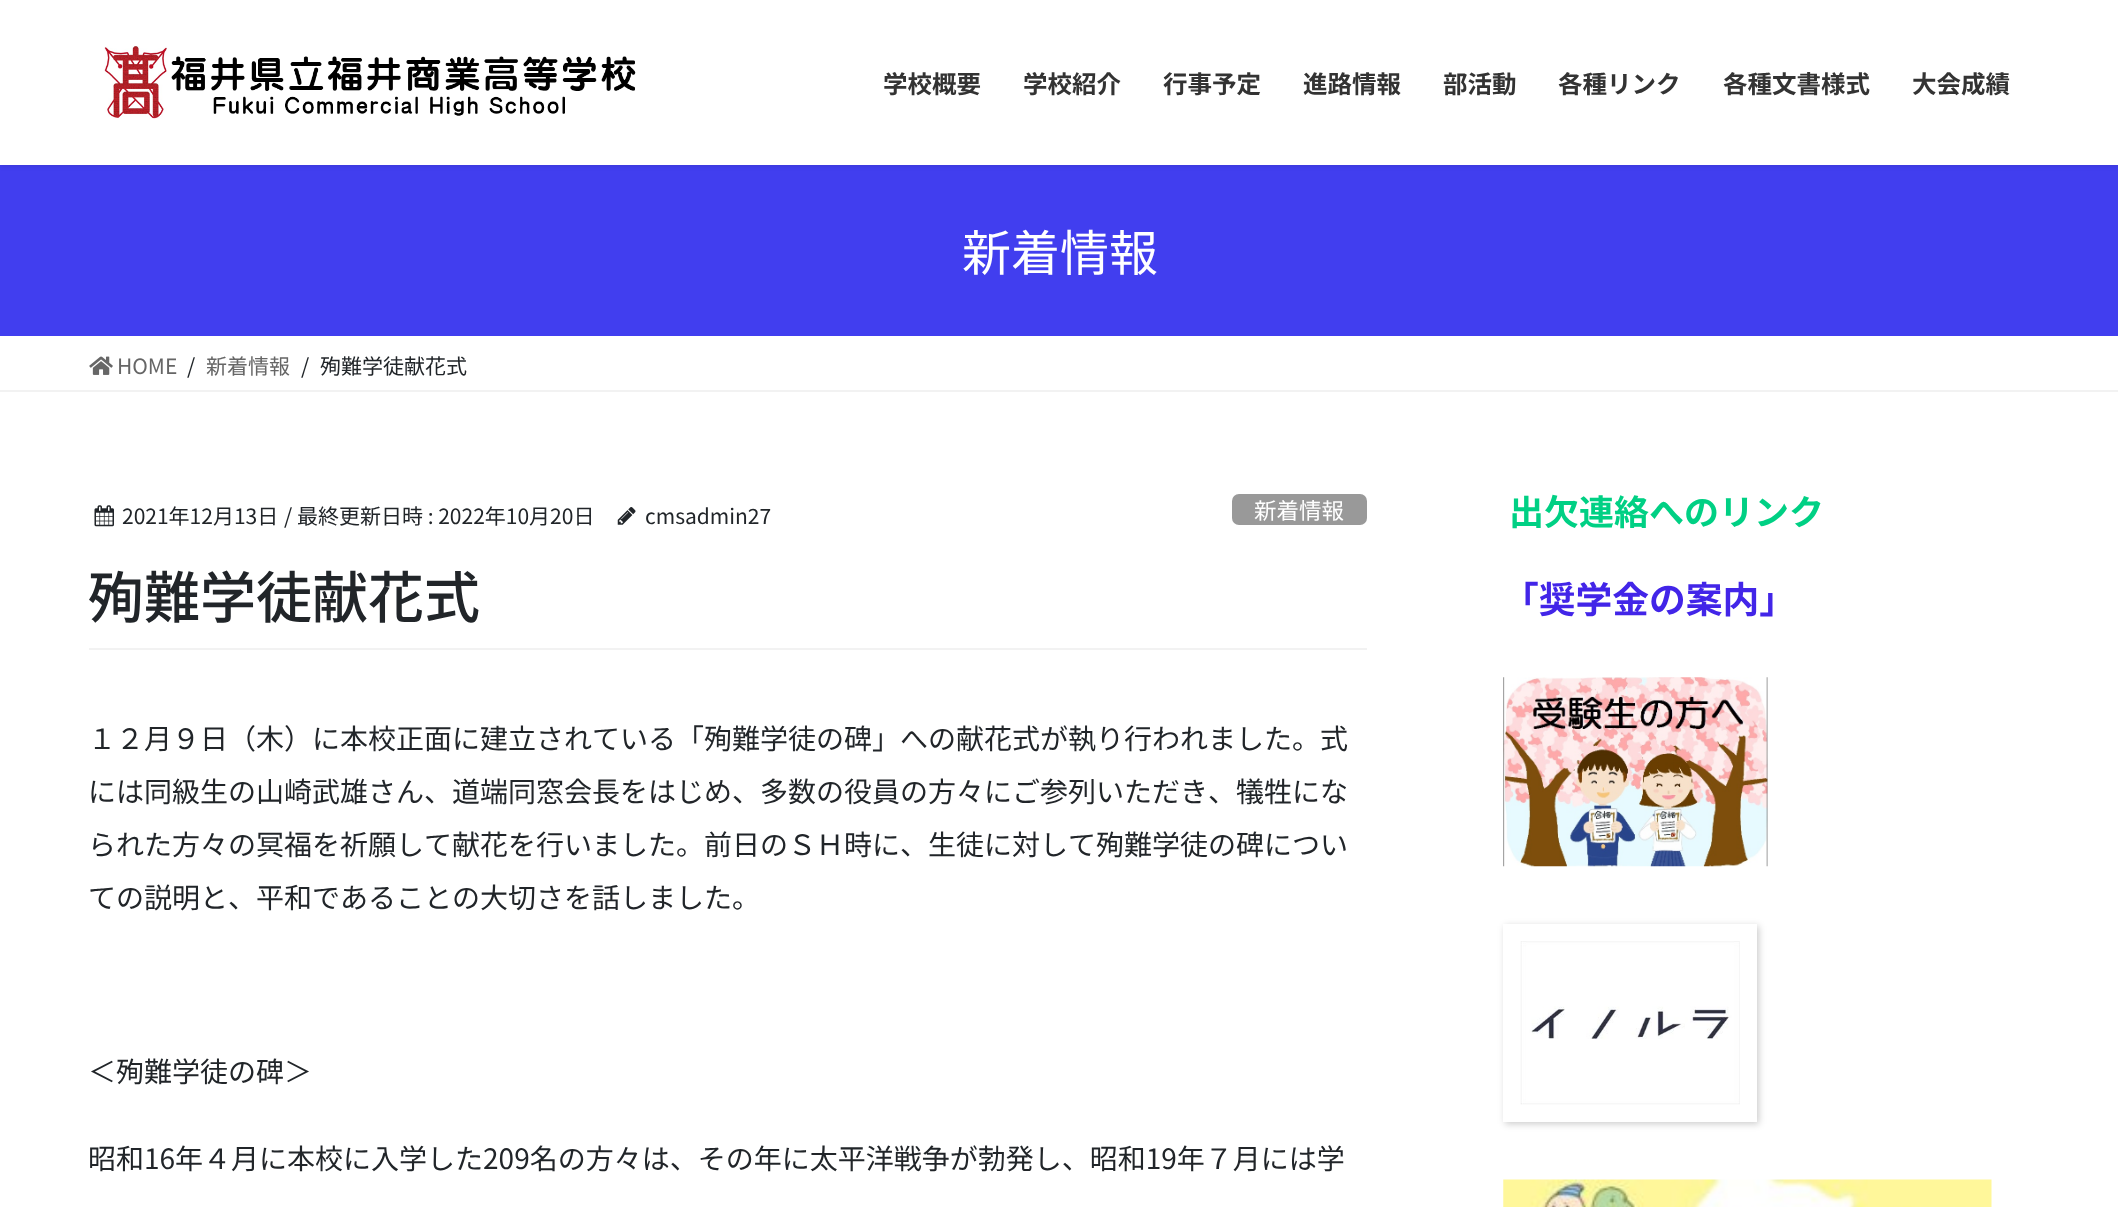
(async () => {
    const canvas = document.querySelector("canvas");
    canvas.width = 2118;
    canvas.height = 1207;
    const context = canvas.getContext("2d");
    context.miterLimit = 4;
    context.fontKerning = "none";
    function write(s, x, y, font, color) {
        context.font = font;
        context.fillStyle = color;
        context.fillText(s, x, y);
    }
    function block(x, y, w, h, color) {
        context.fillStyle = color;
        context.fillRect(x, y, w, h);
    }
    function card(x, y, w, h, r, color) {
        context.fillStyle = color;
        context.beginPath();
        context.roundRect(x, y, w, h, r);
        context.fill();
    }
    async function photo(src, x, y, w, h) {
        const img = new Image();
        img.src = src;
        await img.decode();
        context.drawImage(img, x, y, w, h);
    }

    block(0, 0, 2118, 1207, "rgb(255, 255, 255)");
    block(0, 165, 2118, 171, "rgb(65, 62, 239)");
    context.fillStyle = "rgba(0, 0, 0, 0.1)";
    context.filter = "blur(2.5px)";
    context.beginPath();
    context.rect(0, 2, 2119, 164);
    context.fill();
    context.filter = "none";
    block(0, 0, 2118, 165, "rgb(255, 255, 255)");
    await photo("media/1.png", 104, 46, 532, 73);
    write("学校概要", 883, 93, "bold 24.5px Noto Sans JP", "rgb(51, 51, 51)");
    write("学校紹介", 1023, 93, "bold 24.5px Noto Sans JP", "rgb(51, 51, 51)");
    write("行事予定", 1163, 93, "bold 24.5px Noto Sans JP", "rgb(51, 51, 51)");
    write("進路情報", 1303, 93, "bold 24.5px Noto Sans JP", "rgb(51, 51, 51)");
    write("部活動", 1443, 93, "bold 24.5px Noto Sans JP", "rgb(51, 51, 51)");
    write("各種リンク", 1558, 93, "bold 24.5px Noto Sans JP", "rgb(51, 51, 51)");
    write("各種文書様式", 1723, 93, "bold 24.5px Noto Sans JP", "rgb(51, 51, 51)");
    write("大会成績", 1912, 93, "bold 24.5px Noto Sans JP", "rgb(51, 51, 51)");
    write("新着情報", 962, 271, "49px Noto Sans JP", "rgb(255, 255, 255)");
    block(0, 390, 2118, 2, "rgb(242, 242, 242)");
    await photo("media/2.png", 89, 356, 24, 19);
    write("HOME", 117, 374, "21px Noto Sans JP", "rgb(102, 102, 102)");
    write("/", 187, 374, "21px Noto Sans JP", "rgb(33, 37, 41)");
    write("新着情報", 206, 374, "21px Noto Sans JP", "rgb(102, 102, 102)");
    write("/", 301, 374, "21px Noto Sans JP", "rgb(33, 37, 41)");
    write("殉難学徒献花式", 320, 374, "21px Noto Sans JP", "rgb(33, 37, 41)");
    block(89, 648, 1278, 2, "rgb(242, 242, 242)");
    await photo("media/3.png", 94, 505, 20, 22);
    write("2021年12月13日", 122, 524, "21px Noto Sans JP", "rgb(33, 37, 41)");
    write("/ 最終更新日時 : 2022年10月20日", 284, 524, "21px Noto Sans JP", "rgb(33, 37, 41)");
    await photo("media/4.png", 617, 507, 19, 18);
    write("cmsadmin27", 645, 524, "21px Noto Sans JP", "rgb(33, 37, 41)");
    card(1232, 494, 135, 31, 7, "rgb(153, 153, 153)");
    write("新着情報", 1254, 519, "22.5px Noto Sans JP", "rgb(255, 255, 255)");
    write("殉難学徒献花式", 88, 618, "500 56px Noto Sans JP", "rgb(33, 37, 41)");
    write("１２月９日（木）に本校正面に建立されている「殉難学徒の碑」への献花式が執り行われました。式", 88, 749, "28px Noto Sans JP", "rgb(33, 37, 41)");
    write("には同級生の山崎武雄さん、道端同窓会長をはじめ、多数の役員の方々にご参列いただき、犠牲にな", 88, 802, "28px Noto Sans JP", "rgb(33, 37, 41)");
    write("られた方々の冥福を祈願して献花を行いました。前日のＳＨ時に、生徒に対して殉難学徒の碑につい", 88, 855, "28px Noto Sans JP", "rgb(33, 37, 41)");
    write("ての説明と、平和であることの大切さを話しました。", 88, 908, "28px Noto Sans JP", "rgb(33, 37, 41)");
    write("＜殉難学徒の碑＞", 88, 1082, "28px Noto Sans JP", "rgb(33, 37, 41)");
    write("昭和16年４月に本校に入学した209名の方々は、その年に太平洋戦争が勃発し、昭和19年７月には学", 88, 1169, "28px Noto Sans JP", "rgb(33, 37, 41)");
    write("出欠連絡へのリンク", 1509, 525, "bold 35px Noto Sans JP", "rgb(0, 208, 132)");
    write("「奨学金の案内」", 1502, 613, "bold 36.75px Noto Sans JP", "rgb(66, 37, 232)");
    await photo("media/5.png", 1503, 677, 265, 190);
    context.fillStyle = "rgba(0, 0, 0, 0.2)";
    context.filter = "blur(3.5px)";
    context.beginPath();
    context.rect(1505, 926, 254, 198);
    context.fill();
    context.filter = "none";
    block(1503, 924, 254, 198, "rgb(255, 255, 255)");
    await photo("media/6.png", 1520, 941, 220, 164);
    await photo("media/7.png", 1503, 1179, 489, 28);
})();
